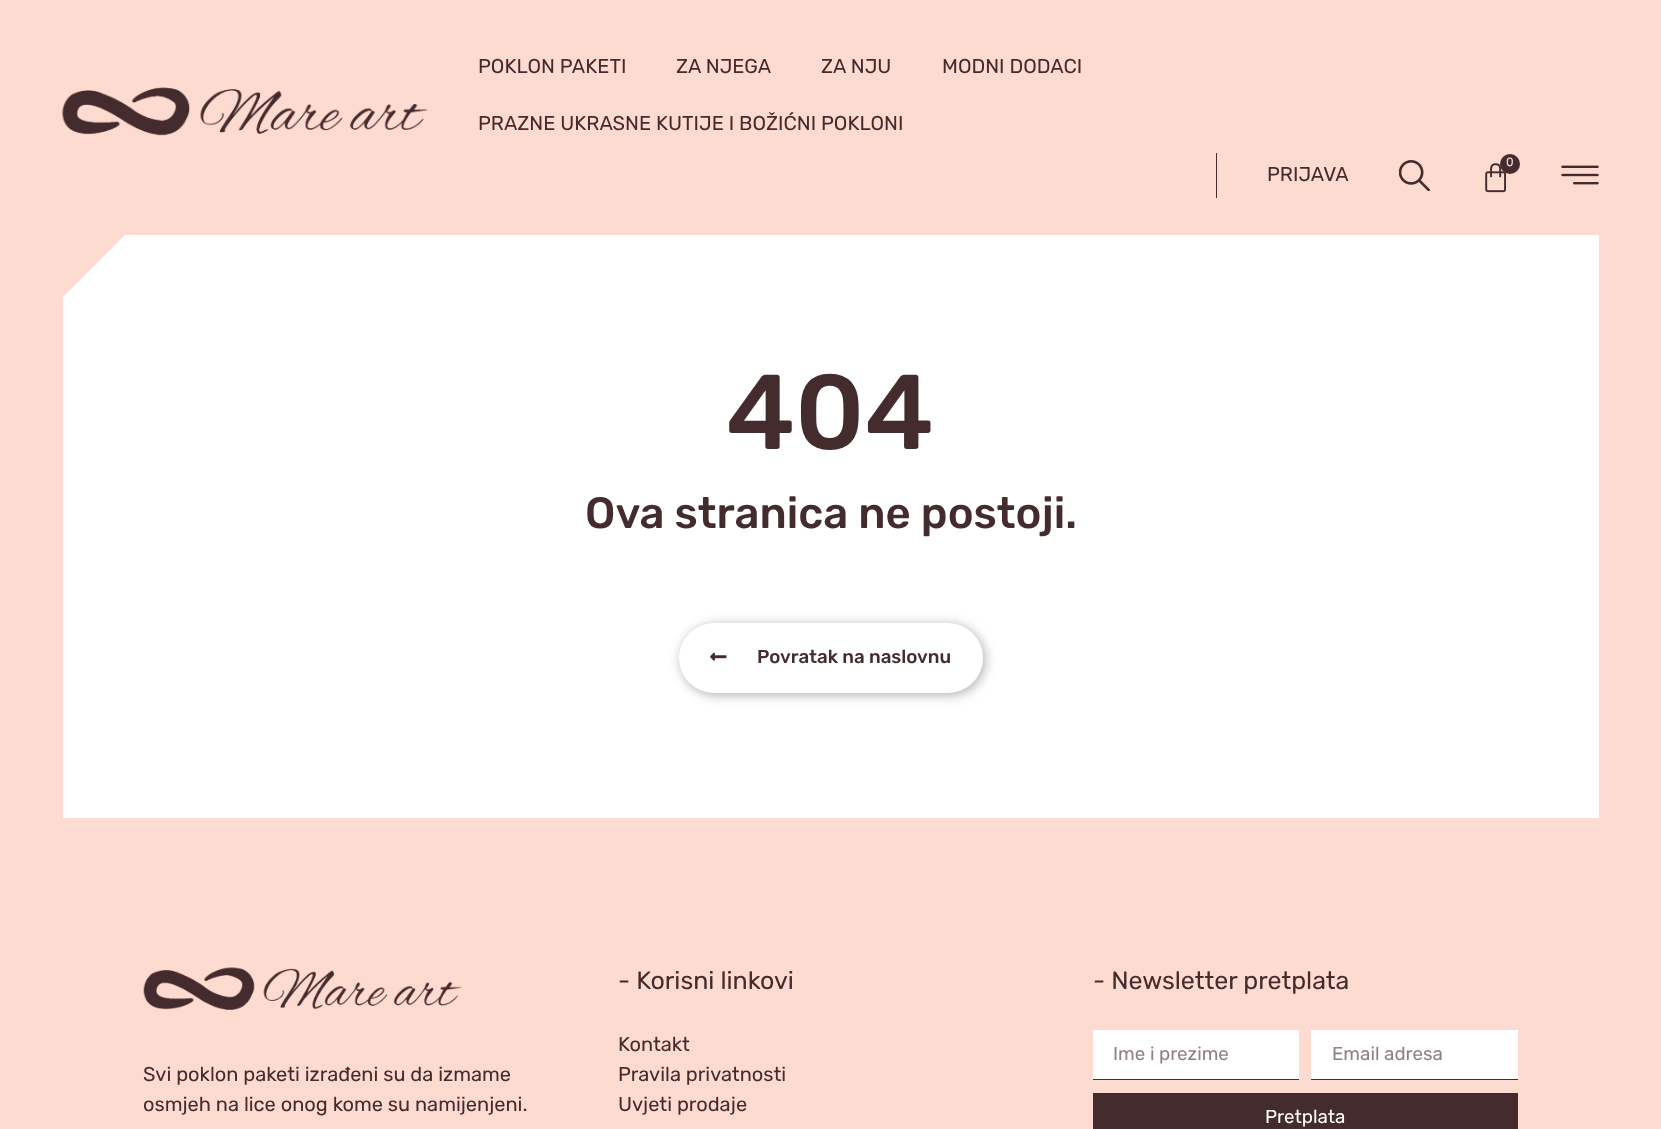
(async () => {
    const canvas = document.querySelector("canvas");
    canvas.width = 1661;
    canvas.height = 1129;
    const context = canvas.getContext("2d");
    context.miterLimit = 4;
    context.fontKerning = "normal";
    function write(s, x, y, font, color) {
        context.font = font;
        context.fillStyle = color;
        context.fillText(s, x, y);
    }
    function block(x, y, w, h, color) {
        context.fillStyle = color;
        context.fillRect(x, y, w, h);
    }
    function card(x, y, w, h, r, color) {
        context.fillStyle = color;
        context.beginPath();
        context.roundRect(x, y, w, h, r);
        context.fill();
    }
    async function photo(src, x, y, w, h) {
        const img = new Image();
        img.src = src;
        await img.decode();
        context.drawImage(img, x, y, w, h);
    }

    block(0, 0, 1661, 1129, "rgb(254, 219, 208)");
    await photo("media/1.png", 62, 87, 366, 49);
    write("POKLON PAKETI", 478, 73, "20px Rubik", "rgb(68, 44, 46)");
    write("ZA NJEGA", 676, 73, "20px Rubik", "rgb(68, 44, 46)");
    write("ZA NJU", 821, 73, "20px Rubik", "rgb(68, 44, 46)");
    write("MODNI DODACI", 942, 73, "20px Rubik", "rgb(68, 44, 46)");
    write("PRAZNE UKRASNE KUTIJE I BOŽIĆNI POKLONI", 478, 130, "20px Rubik", "rgb(68, 44, 46)");
    block(1216, 153, 1, 45, "rgb(68, 44, 46)");
    write("PRIJAVA", 1267, 181, "20px Rubik", "rgb(68, 44, 46)");
    await photo("media/2.png", 1399, 160, 31, 31);
    await photo("media/3.png", 1485, 163, 22, 30);
    context.beginPath();
    context.arc(1510, 164, 10, 0, Math.PI * 2);
    context.fill();
    write("0", 1506, 166, "12px Rubik", "rgb(254, 219, 208)");
    await photo("media/4.png", 1561, 165, 38, 20);
    context.fillStyle = "rgb(255, 255, 255)";
    context.beginPath();
    context.moveTo(125, 235);
    context.lineTo(63, 297);
    context.lineTo(63, 818);
    context.lineTo(1599, 818);
    context.lineTo(1599, 235);
    context.closePath();
    context.fill();
    write("404", 726, 449, "500 106px Rubik", "rgb(68, 44, 46)");
    write("Ova stranica ne postoji.", 585, 528, "500 43.75px Rubik", "rgb(68, 44, 46)");
    context.fillStyle = "rgba(0, 0, 0, 0.31)";
    context.filter = "blur(6px)";
    context.beginPath();
    context.roundRect(681, 625, 304, 70, 35);
    context.fill();
    context.filter = "none";
    card(679, 623, 304, 70, 35, "rgb(255, 255, 255)");
    await photo("media/5.png", 710, 652, 17, 9);
    write("Povratak na naslovnu", 757, 663, "500 18.75px Rubik", "rgb(68, 44, 46)");
    await photo("media/6.png", 143, 967, 319, 43);
    write("Svi poklon paketi izrađeni su da izmame", 143, 1081, "20px Rubik", "rgb(68, 44, 46)");
    write("osmjeh na lice onog kome su namijenjeni.", 143, 1111, "20px Rubik", "rgb(68, 44, 46)");
    write("- Korisni linkovi", 618, 989, "25px Rubik", "rgb(68, 44, 46)");
    write("Kontakt", 618, 1051, "20px Rubik", "rgb(68, 44, 46)");
    write("Pravila privatnosti", 618, 1081, "20px Rubik", "rgb(68, 44, 46)");
    write("Uvjeti prodaje", 618, 1111, "20px Rubik", "rgb(68, 44, 46)");
    write("- Newsletter pretplata", 1093, 989, "25px Rubik", "rgb(68, 44, 46)");
    block(1093, 1030, 206, 49, "rgb(255, 255, 255)");
    block(1093, 1079, 206, 1, "rgb(68, 44, 46)");
    write("Ime i prezime", 1113, 1060, "18.75px Rubik", "rgb(143, 128, 130)");
    block(1311, 1030, 207, 49, "rgb(255, 255, 255)");
    block(1311, 1079, 207, 1, "rgb(68, 44, 46)");
    write("Email adresa", 1332, 1060, "18.75px Rubik", "rgb(143, 128, 130)");
    block(1093, 1093, 425, 36, "rgb(68, 44, 46)");
    write("Pretplata", 1265, 1123, "18.75px Rubik", "rgb(255, 255, 255)");
})();
